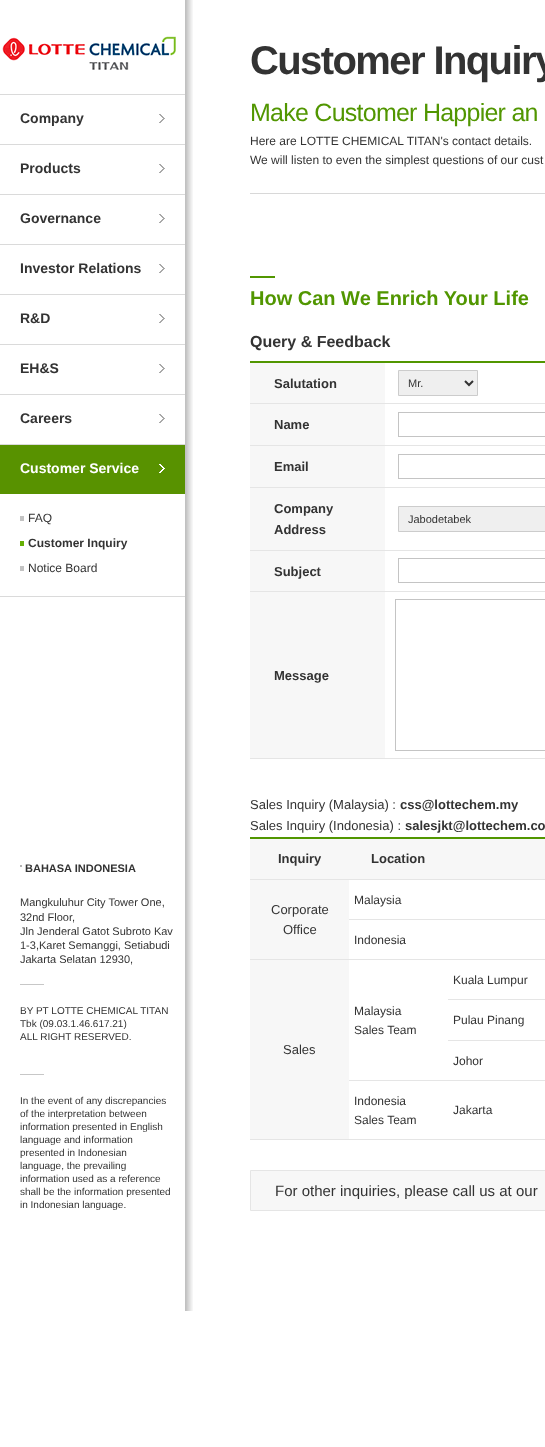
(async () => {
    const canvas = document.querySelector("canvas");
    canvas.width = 545;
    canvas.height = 1447;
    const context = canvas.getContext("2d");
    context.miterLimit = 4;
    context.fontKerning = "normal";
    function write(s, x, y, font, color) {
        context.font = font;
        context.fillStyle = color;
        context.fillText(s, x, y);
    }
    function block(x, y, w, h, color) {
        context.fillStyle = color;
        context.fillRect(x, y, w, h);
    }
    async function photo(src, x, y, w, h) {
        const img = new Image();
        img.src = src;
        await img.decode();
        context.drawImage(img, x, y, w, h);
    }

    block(0, 0, 545, 1447, "rgb(255, 255, 255)");
    await photo("media/1.png", 185, 0, 8, 1311);
    await photo("media/2.png", 2, 36, 174, 34);
    block(250, 193, 295, 1, "rgb(216, 216, 216)");
    context.letterSpacing = "-1.6px";
    write("Customer Inquiry", 250, 74, "bold 40px Liberation Sans", "rgb(51, 51, 51)");
    context.letterSpacing = "-0.75px";
    write("Make Customer Happier an", 250, 121, "25px Liberation Sans", "rgb(81, 150, 0)");
    context.letterSpacing = "0px";
    write("Here are LOTTE CHEMICAL TITAN's contact details.", 250, 145, "12px Liberation Sans", "rgb(51, 51, 51)");
    write("We will listen to even the simplest questions of our cust", 250, 164, "12px Liberation Sans", "rgb(51, 51, 51)");
    block(20, 865, 2, 2, "rgb(178, 178, 178)");
    write("BAHASA INDONESIA", 25, 872, "bold 11px Liberation Sans", "rgb(51, 51, 51)");
    write("Mangkuluhur City Tower One,", 20, 906, "11px Liberation Sans", "rgb(51, 51, 51)");
    write("32nd Floor,", 20, 921, "11px Liberation Sans", "rgb(51, 51, 51)");
    write("Jln Jenderal Gatot Subroto Kav", 20, 935, "11px Liberation Sans", "rgb(51, 51, 51)");
    write("1-3,Karet Semanggi, Setiabudi", 20, 949, "11px Liberation Sans", "rgb(51, 51, 51)");
    write("Jakarta Selatan 12930,", 20, 963, "11px Liberation Sans", "rgb(51, 51, 51)");
    block(20, 984, 24, 1, "rgb(199, 199, 199)");
    write("BY PT LOTTE CHEMICAL TITAN", 20, 1014, "10px Liberation Sans", "rgb(51, 51, 51)");
    write("Tbk (09.03.1.46.617.21)", 20, 1027, "10px Liberation Sans", "rgb(51, 51, 51)");
    write("ALL RIGHT RESERVED.", 20, 1040, "10px Liberation Sans", "rgb(51, 51, 51)");
    block(20, 1074, 24, 1, "rgb(199, 199, 199)");
    write("In the event of any discrepancies", 20, 1104, "10px Liberation Sans", "rgb(51, 51, 51)");
    write("of the interpretation between", 20, 1117, "10px Liberation Sans", "rgb(51, 51, 51)");
    write("information presented in English", 20, 1130, "10px Liberation Sans", "rgb(51, 51, 51)");
    write("language and information", 20, 1143, "10px Liberation Sans", "rgb(51, 51, 51)");
    write("presented in Indonesian", 20, 1156, "10px Liberation Sans", "rgb(51, 51, 51)");
    write("language, the prevailing", 20, 1169, "10px Liberation Sans", "rgb(51, 51, 51)");
    write("information used as a reference", 20, 1182, "10px Liberation Sans", "rgb(51, 51, 51)");
    write("shall be the information presented", 20, 1195, "10px Liberation Sans", "rgb(51, 51, 51)");
    write("in Indonesian language.", 20, 1208, "10px Liberation Sans", "rgb(51, 51, 51)");
    block(250, 276, 25, 2, "rgb(81, 150, 0)");
    write("How Can We Enrich Your Life", 250, 305, "bold 20px Liberation Sans", "rgb(81, 150, 0)");
    write("Query & Feedback", 250, 347, "bold 16px Liberation Sans", "rgb(51, 51, 51)");
    block(250, 361, 295, 2, "rgb(81, 150, 0)");
    block(250, 363, 135, 40, "rgb(247, 247, 247)");
    write("Salutation", 274, 388, "bold 13px Liberation Sans", "rgb(51, 51, 51)");
    block(250, 403, 295, 1, "rgb(229, 229, 229)");
    context.fillStyle = "rgb(239, 239, 239)";
    context.beginPath();
    context.rect(398.5, 370.5, 79, 25);
    context.fill();
    context.strokeStyle = "rgb(204, 204, 204)";
    context.stroke();
    context.beginPath();
    context.moveTo(465, 381);
    context.lineTo(469, 385);
    context.lineTo(473, 381);
    context.strokeStyle = "rgb(51, 51, 51)";
    context.lineWidth = 2;
    context.stroke();
    write("Mr.", 408, 387, "11px Liberation Sans", "rgb(51, 51, 51)");
    block(250, 445, 295, 1, "rgb(229, 229, 229)");
    context.strokeStyle = "rgb(196, 196, 196)";
    context.lineWidth = 1;
    context.strokeRect(398.5, 412.5, 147, 24);
    block(250, 404, 135, 41, "rgb(247, 247, 247)");
    write("Name", 274, 429, "bold 13px Liberation Sans", "rgb(51, 51, 51)");
    block(250, 487, 295, 1, "rgb(229, 229, 229)");
    context.strokeRect(398.5, 454.5, 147, 24);
    block(250, 446, 135, 41, "rgb(247, 247, 247)");
    write("Email", 274, 471, "bold 13px Liberation Sans", "rgb(51, 51, 51)");
    block(250, 488, 135, 62, "rgb(247, 247, 247)");
    write("Company", 274, 513, "bold 13px Liberation Sans", "rgb(51, 51, 51)");
    write("Address", 274, 534, "bold 13px Liberation Sans", "rgb(51, 51, 51)");
    block(250, 550, 295, 1, "rgb(229, 229, 229)");
    context.fillStyle = "rgb(239, 239, 239)";
    context.beginPath();
    context.rect(398.5, 506.5, 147, 25);
    context.fill();
    context.strokeStyle = "rgb(204, 204, 204)";
    context.stroke();
    write("Jabodetabek", 408, 523, "11px Liberation Sans", "rgb(51, 51, 51)");
    block(250, 591, 295, 1, "rgb(229, 229, 229)");
    context.strokeStyle = "rgb(196, 196, 196)";
    context.strokeRect(398.5, 558.5, 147, 24);
    block(250, 551, 135, 40, "rgb(247, 247, 247)");
    write("Subject", 274, 576, "bold 13px Liberation Sans", "rgb(51, 51, 51)");
    block(250, 758, 295, 1, "rgb(229, 229, 229)");
    context.strokeRect(395.5, 599.5, 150, 151);
    block(250, 592, 135, 166, "rgb(247, 247, 247)");
    write("Message", 274, 680, "bold 13px Liberation Sans", "rgb(51, 51, 51)");
    write("Sales Inquiry (Malaysia) :", 250, 809, "13px Liberation Sans", "rgb(51, 51, 51)");
    write("css@lottechem.my", 400, 809, "bold 13px Liberation Sans", "rgb(51, 51, 51)");
    write("Sales Inquiry (Indonesia) :", 250, 830, "13px Liberation Sans", "rgb(51, 51, 51)");
    write("salesjkt@lottechem.co", 405, 830, "bold 13px Liberation Sans", "rgb(51, 51, 51)");
    block(250, 837, 295, 2, "rgb(81, 150, 0)");
    block(250, 839, 295, 40, "rgb(247, 247, 247)");
    write("Inquiry", 278, 863, "bold 13px Liberation Sans", "rgb(51, 51, 51)");
    write("Location", 371, 863, "bold 13px Liberation Sans", "rgb(51, 51, 51)");
    block(250, 879, 295, 1, "rgb(229, 229, 229)");
    write("Malaysia", 354, 904, "12px Liberation Sans", "rgb(51, 51, 51)");
    block(250, 880, 99, 79, "rgb(247, 247, 247)");
    write("Corporate", 271, 914, "13px Liberation Sans", "rgb(51, 51, 51)");
    write("Office", 283, 934, "13px Liberation Sans", "rgb(51, 51, 51)");
    block(349, 919, 196, 1, "rgb(229, 229, 229)");
    write("Indonesia", 354, 944, "12px Liberation Sans", "rgb(51, 51, 51)");
    block(250, 959, 295, 1, "rgb(229, 229, 229)");
    block(448, 999, 97, 1, "rgb(229, 229, 229)");
    write("Kuala Lumpur", 453, 984, "12px Liberation Sans", "rgb(51, 51, 51)");
    write("Malaysia", 354, 1015, "12px Liberation Sans", "rgb(51, 51, 51)");
    write("Sales Team", 354, 1034, "12px Liberation Sans", "rgb(51, 51, 51)");
    block(250, 960, 99, 179, "rgb(247, 247, 247)");
    write("Sales", 283, 1054, "13px Liberation Sans", "rgb(51, 51, 51)");
    block(448, 1040, 97, 1, "rgb(229, 229, 229)");
    write("Pulau Pinang", 453, 1024, "12px Liberation Sans", "rgb(51, 51, 51)");
    block(349, 1080, 196, 1, "rgb(229, 229, 229)");
    write("Johor", 453, 1065, "12px Liberation Sans", "rgb(51, 51, 51)");
    write("Indonesia", 354, 1105, "12px Liberation Sans", "rgb(51, 51, 51)");
    write("Sales Team", 354, 1124, "12px Liberation Sans", "rgb(51, 51, 51)");
    block(250, 1139, 295, 1, "rgb(229, 229, 229)");
    write("Jakarta", 453, 1114, "12px Liberation Sans", "rgb(51, 51, 51)");
    context.fillStyle = "rgb(247, 247, 247)";
    context.beginPath();
    context.rect(250.5, 1170.5, 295, 40);
    context.fill();
    context.strokeStyle = "rgb(229, 229, 229)";
    context.stroke();
    write("For other inquiries, please call us at our", 275, 1196, "15px Liberation Sans", "rgb(51, 51, 51)");
    block(0, 596, 185, 1, "rgb(218, 218, 218)");
    block(0, 94, 185, 1, "rgb(218, 218, 218)");
    await photo("media/3.png", 159, 114, 6, 9);
    write("Company", 20, 123, "bold 14px Liberation Sans", "rgb(51, 51, 51)");
    block(0, 144, 185, 1, "rgb(218, 218, 218)");
    await photo("media/3.png", 159, 164, 6, 9);
    write("Products", 20, 173, "bold 14px Liberation Sans", "rgb(51, 51, 51)");
    block(0, 194, 185, 1, "rgb(218, 218, 218)");
    await photo("media/3.png", 159, 214, 6, 9);
    write("Governance", 20, 223, "bold 14px Liberation Sans", "rgb(51, 51, 51)");
    block(0, 244, 185, 1, "rgb(218, 218, 218)");
    await photo("media/3.png", 159, 264, 6, 9);
    write("Investor Relations", 20, 273, "bold 14px Liberation Sans", "rgb(51, 51, 51)");
    block(0, 294, 185, 1, "rgb(218, 218, 218)");
    await photo("media/3.png", 159, 314, 6, 9);
    write("R&D", 20, 323, "bold 14px Liberation Sans", "rgb(51, 51, 51)");
    block(0, 344, 185, 1, "rgb(218, 218, 218)");
    await photo("media/3.png", 159, 364, 6, 9);
    write("EH&S", 20, 373, "bold 14px Liberation Sans", "rgb(51, 51, 51)");
    block(0, 394, 185, 1, "rgb(218, 218, 218)");
    await photo("media/3.png", 159, 414, 6, 9);
    write("Careers", 20, 423, "bold 14px Liberation Sans", "rgb(51, 51, 51)");
    block(0, 444, 185, 1, "rgb(218, 218, 218)");
    block(0, 445, 185, 49, "rgb(88, 146, 0)");
    await photo("media/4.png", 159, 464, 6, 9);
    write("Customer Service", 20, 473, "bold 14px Liberation Sans", "rgb(255, 255, 255)");
    block(20, 516, 4, 5, "rgb(195, 195, 195)");
    write("FAQ", 28, 522, "12px Liberation Sans", "rgb(51, 51, 51)");
    block(20, 541, 4, 5, "rgb(101, 175, 3)");
    write("Customer Inquiry", 28, 547, "bold 12px Liberation Sans", "rgb(51, 51, 51)");
    block(20, 566, 4, 5, "rgb(195, 195, 195)");
    write("Notice Board", 28, 572, "12px Liberation Sans", "rgb(51, 51, 51)");
})();
